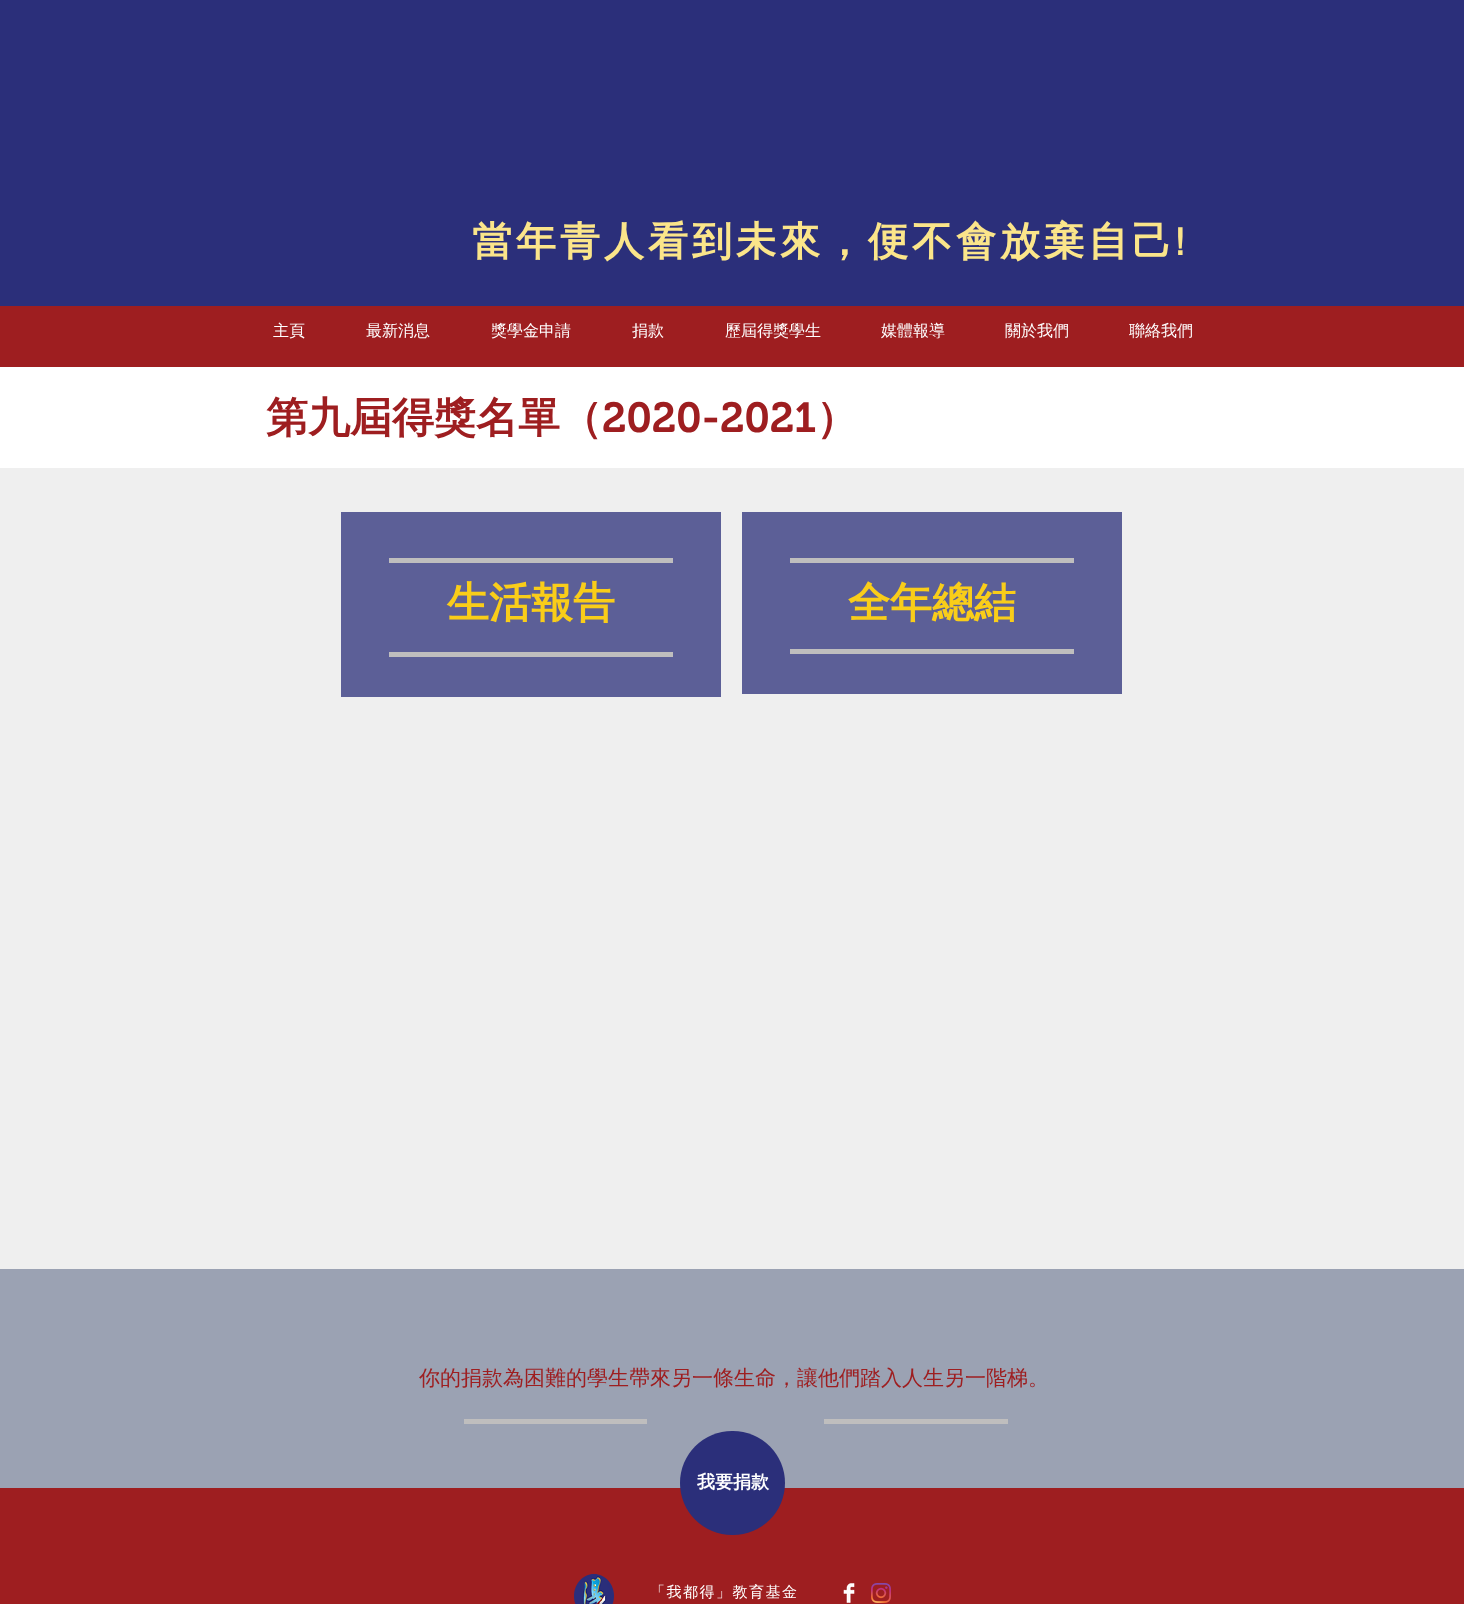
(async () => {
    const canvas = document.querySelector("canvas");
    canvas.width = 1464;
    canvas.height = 1604;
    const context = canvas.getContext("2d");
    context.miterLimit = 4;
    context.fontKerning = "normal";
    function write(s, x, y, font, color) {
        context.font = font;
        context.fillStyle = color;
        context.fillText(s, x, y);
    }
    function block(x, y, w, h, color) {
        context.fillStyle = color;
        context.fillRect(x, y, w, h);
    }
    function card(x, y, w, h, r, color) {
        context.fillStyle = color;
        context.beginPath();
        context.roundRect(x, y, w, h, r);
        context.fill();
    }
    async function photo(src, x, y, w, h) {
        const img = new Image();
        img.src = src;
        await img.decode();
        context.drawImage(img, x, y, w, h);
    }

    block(0, 0, 1464, 1604, "rgb(239, 239, 239)");
    block(0, 0, 1464, 306, "rgb(43, 47, 122)");
    context.letterSpacing = "4px";
    write("當年青人看到未來，便不會放棄自己", 472, 255, "bold 40px WenQuanYi Zen Hei", "rgb(251, 229, 138)");
    write("!", 1176, 255, "bold 40px 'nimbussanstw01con'", "rgb(251, 229, 138)");
    block(0, 306, 1464, 61, "rgb(158, 30, 32)");
    context.letterSpacing = "0px";
    write("主頁", 273, 336, "500 16px WenQuanYi Zen Hei", "rgb(255, 255, 255)");
    write("最新消息", 366, 336, "500 16px WenQuanYi Zen Hei", "rgb(255, 255, 255)");
    write("獎學金申請", 491, 336, "500 16px WenQuanYi Zen Hei", "rgb(255, 255, 255)");
    write("捐款", 632, 336, "500 16px WenQuanYi Zen Hei", "rgb(255, 255, 255)");
    write("歷屆得獎學生", 725, 336, "500 16px WenQuanYi Zen Hei", "rgb(255, 255, 255)");
    write("媒體報導", 881, 336, "500 16px WenQuanYi Zen Hei", "rgb(255, 255, 255)");
    write("關於我們", 1005, 336, "500 16px WenQuanYi Zen Hei", "rgb(255, 255, 255)");
    write("聯絡我們", 1129, 336, "500 16px WenQuanYi Zen Hei", "rgb(255, 255, 255)");
    block(0, 367, 1464, 101, "rgb(255, 255, 255)");
    write("第九屆得獎名單（", 266, 432, "bold 42px WenQuanYi Zen Hei", "rgb(158, 30, 32)");
    write("2020-2021", 602, 432, "600 42px 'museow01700'", "rgb(158, 30, 32)");
    write("）", 816, 432, "bold 42px WenQuanYi Zen Hei", "rgb(158, 30, 32)");
    block(341, 512, 380, 185, "rgb(92, 95, 151)");
    block(389, 558, 284, 5, "rgb(191, 190, 190)");
    write("生活報告", 447, 617, "bold 42px WenQuanYi Zen Hei", "rgb(249, 205, 25)");
    block(389, 652, 284, 5, "rgb(191, 190, 190)");
    block(742, 512, 380, 182, "rgb(92, 95, 151)");
    block(790, 558, 284, 5, "rgb(191, 190, 190)");
    write("全年總結", 848, 617, "bold 42px WenQuanYi Zen Hei", "rgb(249, 205, 25)");
    block(790, 649, 284, 5, "rgb(191, 190, 190)");
    block(0, 1269, 1464, 219, "rgb(155, 162, 179)");
    write("你的捐款為困難的學生帶來另一條生命，讓他們踏入人生另一階梯。", 419, 1385, "500 21px WenQuanYi Zen Hei", "rgb(158, 30, 32)");
    block(464, 1419, 183, 5, "rgb(191, 190, 190)");
    block(824, 1419, 184, 5, "rgb(191, 190, 190)");
    block(0, 1488, 1464, 116, "rgb(158, 30, 32)");
    card(680, 1431, 105, 104, 52, "rgb(43, 47, 122)");
    write("我要捐款", 697, 1488, "bold 18px WenQuanYi Zen Hei", "rgb(255, 255, 255)");
    await photo("media/1.png", 574, 1574, 40, 30);
    context.letterSpacing = "1.5px";
    write("「我都得」教育基金", 650, 1597, "500 15px WenQuanYi Zen Hei", "rgb(255, 255, 255)");
    await photo("media/2.png", 843, 1583, 12, 20);
    await photo("media/3.png", 871, 1583, 20, 20);
})();
